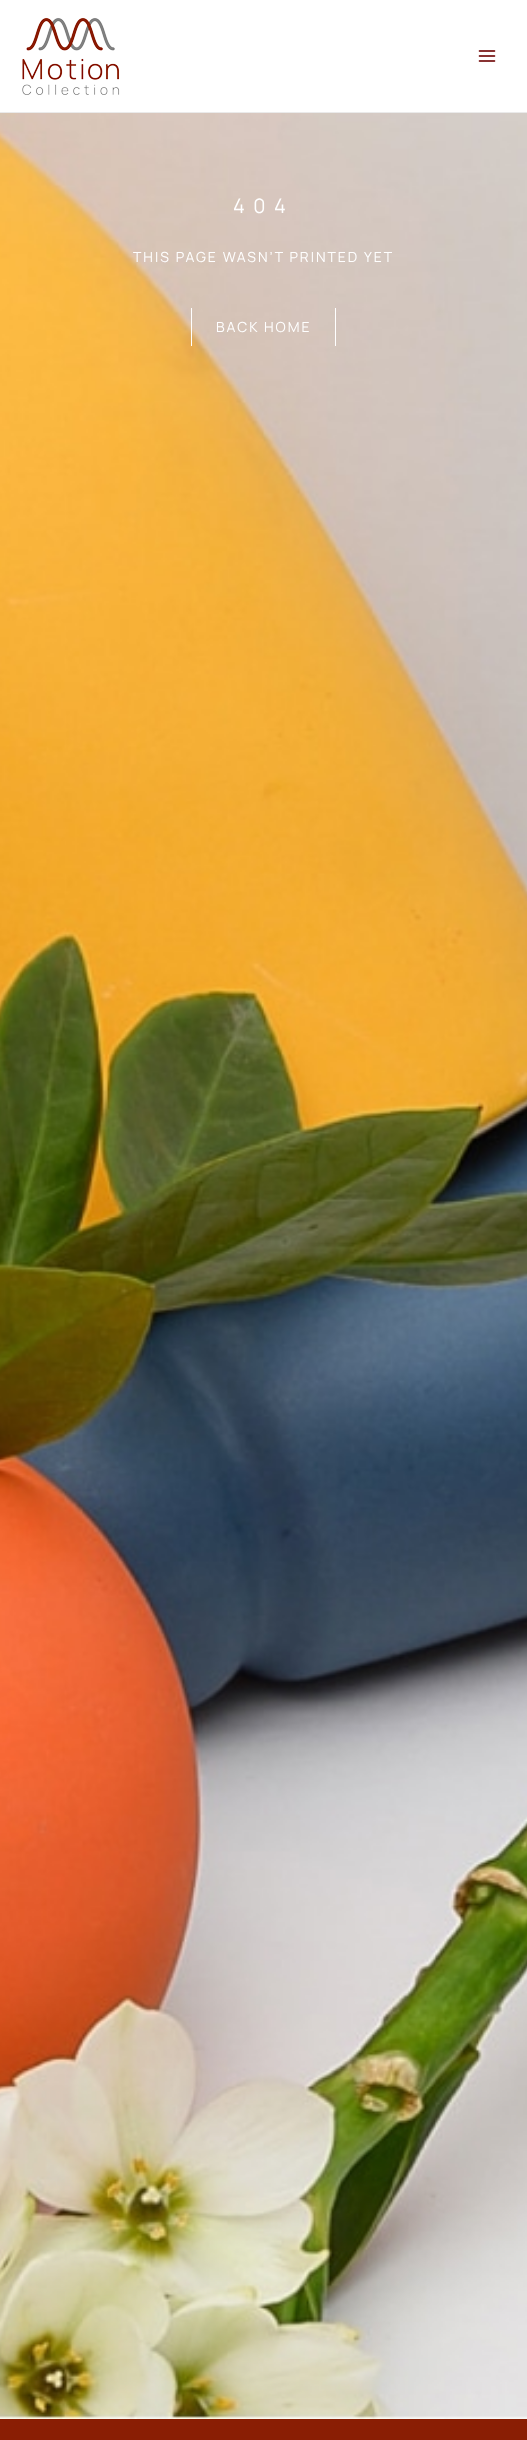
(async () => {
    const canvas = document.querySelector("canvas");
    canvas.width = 527;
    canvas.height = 2440;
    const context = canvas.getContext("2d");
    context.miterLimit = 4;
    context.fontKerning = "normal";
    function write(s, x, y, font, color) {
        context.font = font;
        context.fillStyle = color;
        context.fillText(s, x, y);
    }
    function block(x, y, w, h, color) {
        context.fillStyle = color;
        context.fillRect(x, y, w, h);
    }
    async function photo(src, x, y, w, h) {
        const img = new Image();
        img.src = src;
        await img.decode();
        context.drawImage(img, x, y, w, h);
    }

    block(0, 0, 527, 2440, "rgb(255, 255, 255)");
    block(0, 112, 527, 1, "rgb(234, 234, 234)");
    await photo("media/1.png", 22, 17, 98, 78);
    await photo("media/2.png", 478, 50, 18, 12);
    await photo("media/3.png", 0, 113, 527, 2306);
    context.letterSpacing = "8.5px";
    write("404", 233, 213, "20px Manrope", "rgb(255, 255, 255)");
    context.letterSpacing = "2px";
    write("THIS PAGE WASN’T PRINTED YET", 133, 262, "14px Manrope", "rgb(255, 255, 255)");
    block(335, 308, 1, 38, "rgb(255, 255, 255)");
    block(191, 308, 1, 38, "rgb(255, 255, 255)");
    write("BACK HOME", 216, 332, "14px Manrope", "rgb(255, 255, 255)");
    block(0, 2419, 527, 21, "rgb(138, 30, 4)");
})();
